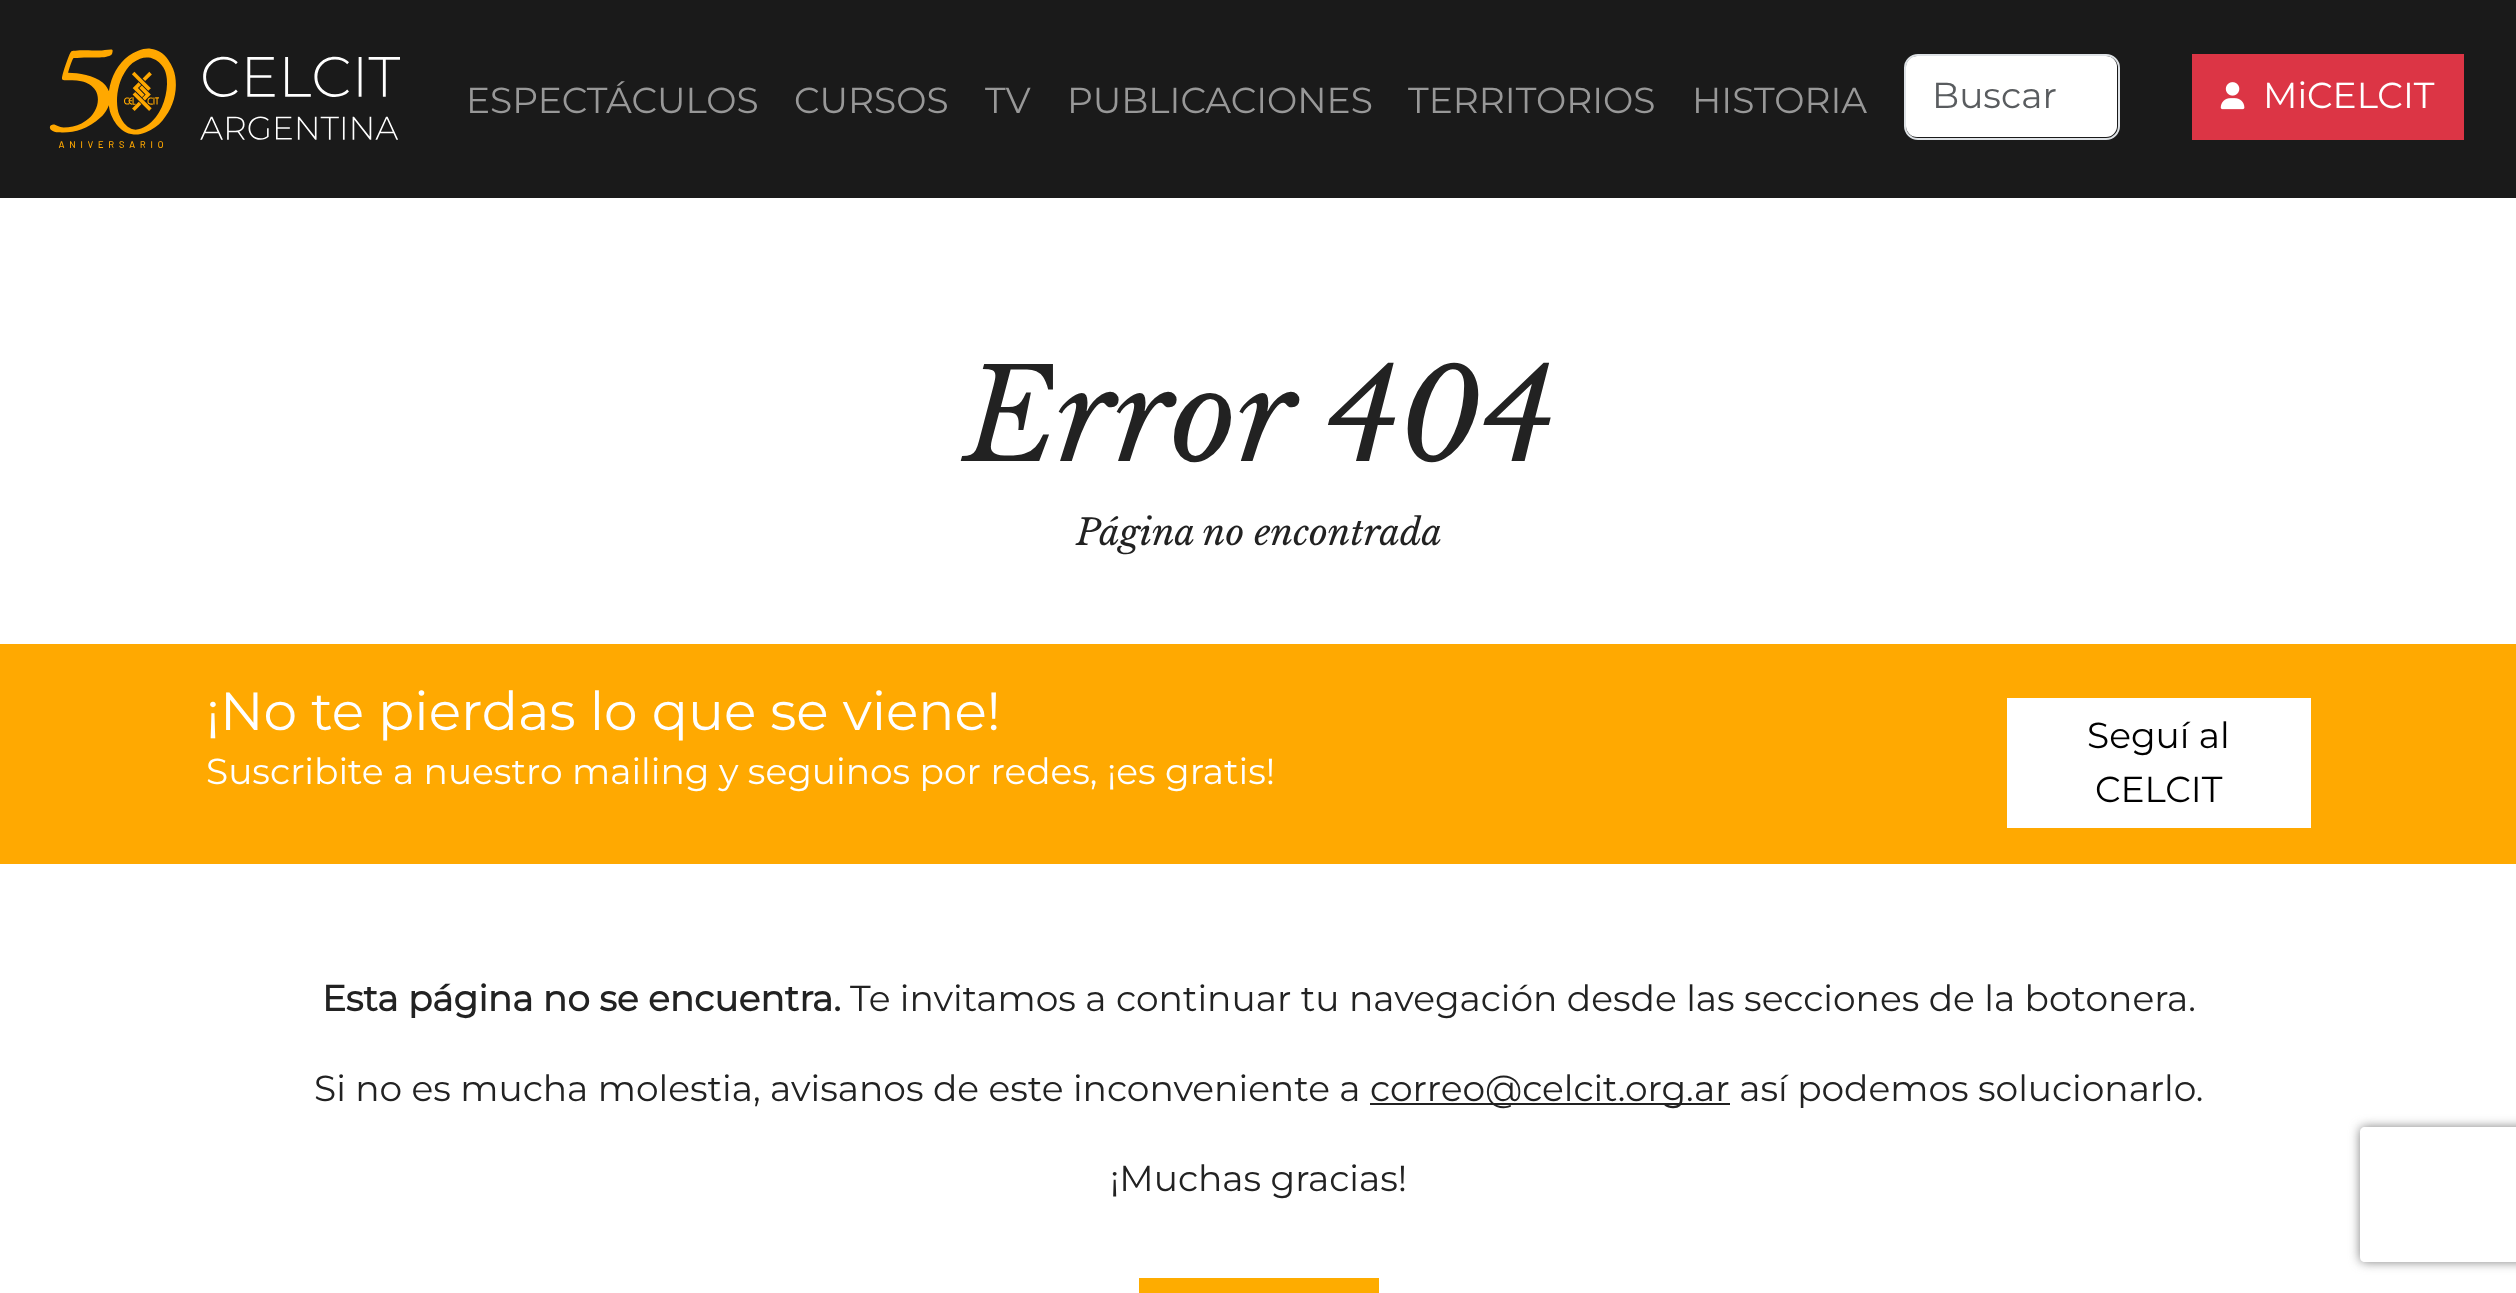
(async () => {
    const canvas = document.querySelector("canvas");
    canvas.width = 2516;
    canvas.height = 1293;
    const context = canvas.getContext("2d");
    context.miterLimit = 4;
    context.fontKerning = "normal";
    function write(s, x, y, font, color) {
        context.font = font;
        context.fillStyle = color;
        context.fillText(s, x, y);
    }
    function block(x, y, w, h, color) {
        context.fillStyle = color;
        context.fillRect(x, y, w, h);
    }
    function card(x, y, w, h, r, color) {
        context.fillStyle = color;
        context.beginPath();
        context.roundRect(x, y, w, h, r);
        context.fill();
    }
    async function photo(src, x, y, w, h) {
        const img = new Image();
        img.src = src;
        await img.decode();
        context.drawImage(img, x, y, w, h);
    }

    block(0, 0, 2516, 1293, "rgb(255, 255, 255)");
    block(0, 0, 2516, 198, "rgb(26, 26, 26)");
    await photo("media/1.png", 49, 48, 351, 100);
    write("ESPECTÁCULOS", 466, 113, "100 36px Montserrat", "rgb(152, 152, 152)");
    write("CURSOS", 794, 113, "100 36px Montserrat", "rgb(152, 152, 152)");
    write("TV", 985, 113, "100 36px Montserrat", "rgb(152, 152, 152)");
    write("PUBLICACIONES", 1067, 113, "100 36px Montserrat", "rgb(152, 152, 152)");
    write("TERRITORIOS", 1408, 113, "100 36px Montserrat", "rgb(152, 152, 152)");
    write("HISTORIA", 1692, 113, "100 36px Montserrat", "rgb(152, 152, 152)");
    card(1906, 56, 211, 81, 11, "rgb(255, 255, 255)");
    context.beginPath();
    context.roundRect(1905, 55, 214, 84, 13);
    context.strokeStyle = "rgb(222, 226, 230)";
    context.lineWidth = 2;
    context.stroke();
    write("Buscar", 1932, 108, "100 36px Montserrat", "rgb(89, 92, 95)");
    block(2192, 54, 272, 86, "rgb(220, 53, 69)");
    await photo("media/2.png", 2220, 82, 25, 28);
    write("MiCELCIT", 2263, 108, "100 36px Montserrat", "rgb(255, 255, 255)");
    write("Error 404", 964, 461, "italic 126px Libre Baskerville", "rgb(34, 34, 34)");
    write("Página no encontrada", 1076, 545, "italic 36px Libre Baskerville", "rgb(34, 34, 34)");
    block(0, 644, 2516, 220, "rgb(255, 169, 1)");
    write("¡No te pierdas lo que se viene!", 206, 730, "100 53.5px Montserrat", "rgb(255, 255, 255)");
    write("Suscribite a nuestro mailing y seguinos por redes, ¡es gratis!", 206, 784, "100 36px Montserrat", "rgb(255, 255, 255)");
    block(2007, 698, 304, 130, "rgb(255, 255, 255)");
    write("Seguí al", 2087, 748, "100 36px Montserrat", "rgb(0, 0, 0)");
    write("CELCIT", 2095, 802, "100 36px Montserrat", "rgb(0, 0, 0)");
    write("Esta página no se encuentra.", 322, 1011, "bold 36px Montserrat", "rgb(34, 34, 34)");
    write("Te invitamos a continuar tu navegación desde las secciones de la botonera.", 850, 1011, "100 36px Montserrat", "rgb(34, 34, 34)");
    write("Si no es mucha molestia, avisanos de este inconveniente a", 314, 1101, "100 36px Montserrat", "rgb(34, 34, 34)");
    block(1370, 1103, 360, 2, "rgb(34, 34, 34)");
    write("correo@celcit.org.ar así podemos solucionarlo.", 1370, 1101, "100 36px Montserrat", "rgb(34, 34, 34)");
    write("¡Muchas gracias!", 1110, 1191, "100 36px Montserrat", "rgb(34, 34, 34)");
    block(1139, 1278, 240, 15, "rgb(254, 172, 0)");
    context.save();
    context.beginPath();
    context.moveTo(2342, 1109);
    context.lineTo(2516, 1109);
    context.lineTo(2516, 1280);
    context.lineTo(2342, 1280);
    context.closePath();
    context.moveTo(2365, 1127);
    context.lineTo(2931, 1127);
    context.bezierCurveTo(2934, 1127, 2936, 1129, 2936, 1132);
    context.lineTo(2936, 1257);
    context.bezierCurveTo(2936, 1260, 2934, 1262, 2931, 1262);
    context.lineTo(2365, 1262);
    context.bezierCurveTo(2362, 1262, 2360, 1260, 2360, 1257);
    context.lineTo(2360, 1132);
    context.bezierCurveTo(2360, 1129, 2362, 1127, 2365, 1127);
    context.closePath();
    context.clip("evenodd");
    context.fillStyle = "rgb(128, 128, 128)";
    context.filter = "blur(5.5px)";
    context.beginPath();
    context.roundRect(2360, 1127, 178, 135, 5);
    context.fill();
    context.filter = "none";
    context.restore();
})();
